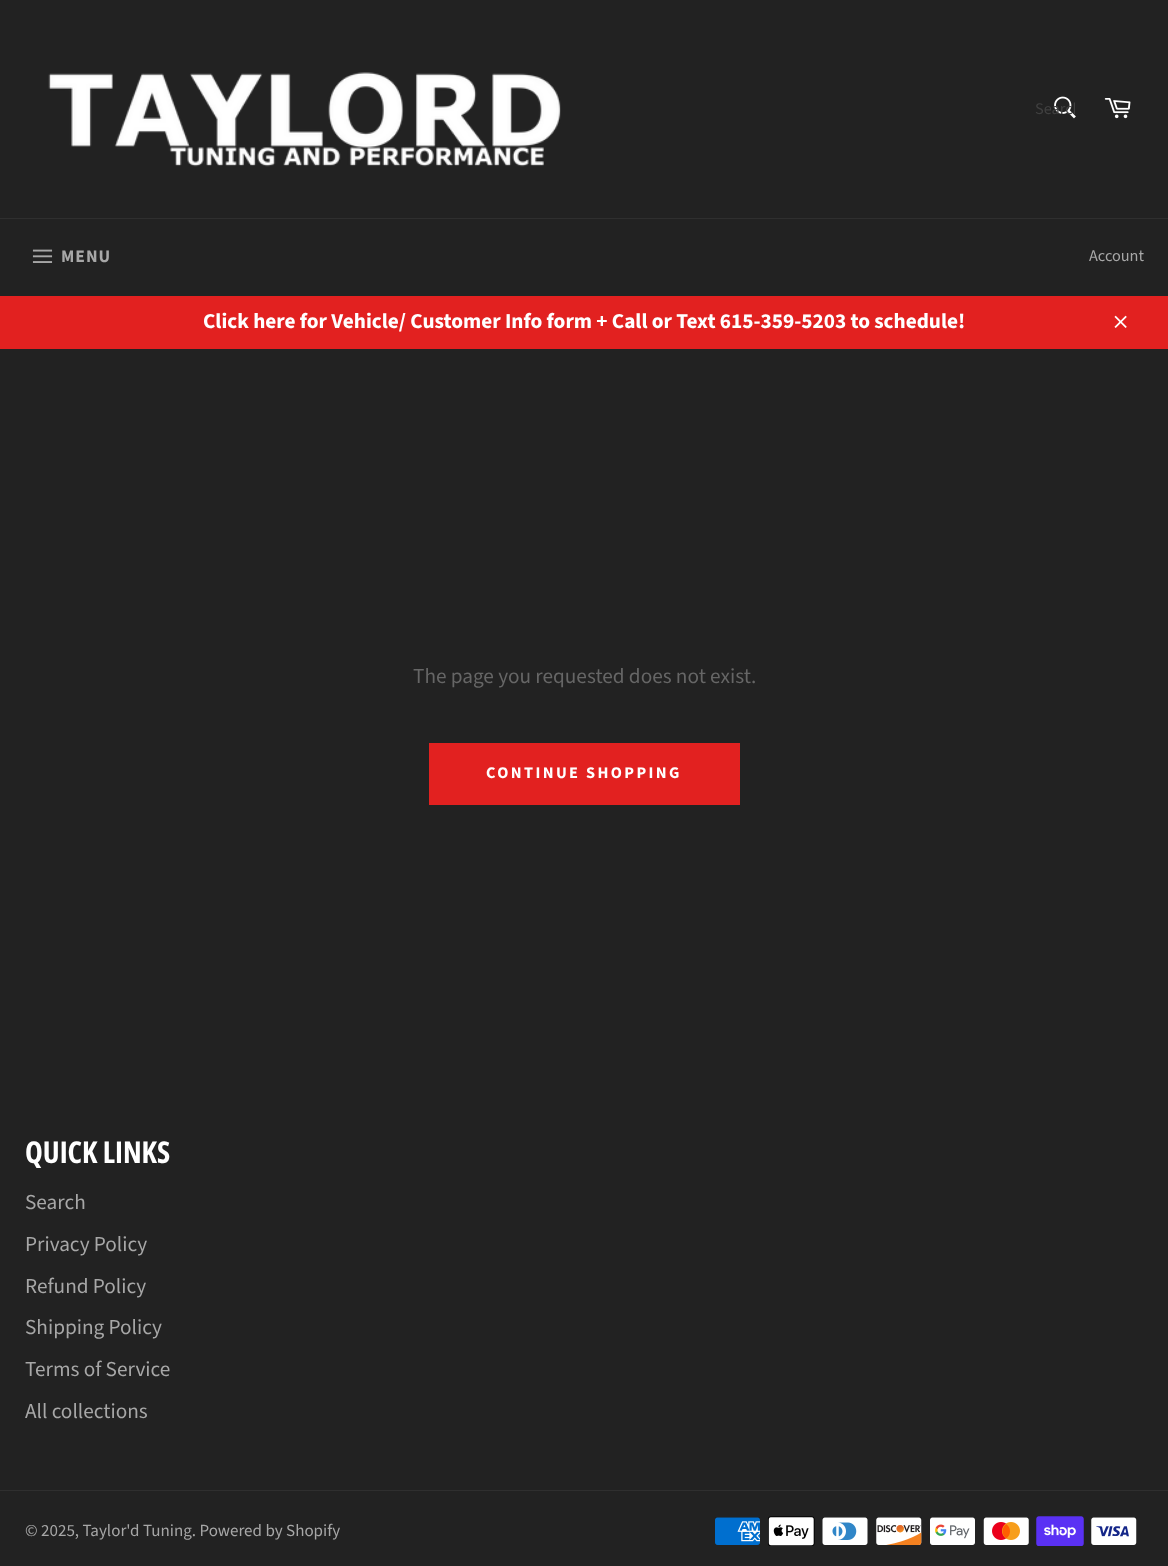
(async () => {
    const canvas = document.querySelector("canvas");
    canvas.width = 1168;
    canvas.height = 1566;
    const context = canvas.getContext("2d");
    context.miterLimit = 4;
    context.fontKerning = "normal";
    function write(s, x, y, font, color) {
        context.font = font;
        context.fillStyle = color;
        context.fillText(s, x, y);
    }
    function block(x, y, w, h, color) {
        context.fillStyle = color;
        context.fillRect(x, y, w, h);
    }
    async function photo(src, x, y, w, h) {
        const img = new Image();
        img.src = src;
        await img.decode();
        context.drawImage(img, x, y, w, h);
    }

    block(0, 0, 1168, 1566, "rgb(34, 34, 34)");
    await photo("media/1.png", 48, 72, 513, 95);
    await photo("media/2.png", 1054, 96, 22, 23);
    context.save();
    context.beginPath();
    context.rect(1035, 98, 40, 22);
    context.clip();
    write("Search", 1035, 114, "16.25px Source Sans Pro", "rgb(64, 64, 64)");
    context.restore();
    await photo("media/3.png", 1104, 98, 27, 21);
    block(0, 218, 1168, 1, "rgb(47, 47, 47)");
    await photo("media/4.png", 32, 249, 21, 14);
    context.letterSpacing = "1px";
    write("MENU", 61, 262, "bold 17.5px Source Sans Pro", "rgb(167, 167, 167)");
    context.letterSpacing = "0px";
    write("Account", 1089, 261, "16.25px Source Sans Pro", "rgb(167, 167, 167)");
    block(0, 296, 1168, 53, "rgb(226, 33, 32)");
    write("Click here for Vehicle/ Customer Info form + Call or Text 615-359-5203 to schedule!", 203, 328, "bold 21.25px Source Sans Pro", "rgb(255, 255, 255)");
    await photo("media/5.png", 1114, 315, 13, 13);
    write("The page you requested does not exist.", 413, 683, "21.25px Source Sans Pro", "rgb(102, 102, 102)");
    block(429, 743, 311, 62, "rgb(226, 33, 32)");
    context.letterSpacing = "2.4px";
    write("CONTINUE SHOPPING", 486, 778, "bold 16.25px Source Sans Pro", "rgb(255, 255, 255)");
    context.letterSpacing = "0px";
    write("QUICK LINKS", 25, 1163, "bold 30px Open Sans Condensed", "rgb(255, 255, 255)");
    write("Search", 25, 1209, "21.25px Source Sans Pro", "rgb(167, 167, 167)");
    write("Privacy Policy", 25, 1251, "21.25px Source Sans Pro", "rgb(167, 167, 167)");
    write("Refund Policy", 25, 1293, "21.25px Source Sans Pro", "rgb(167, 167, 167)");
    write("Shipping Policy", 25, 1334, "21.25px Source Sans Pro", "rgb(167, 167, 167)");
    write("Terms of Service", 25, 1376, "21.25px Source Sans Pro", "rgb(167, 167, 167)");
    write("All collections", 25, 1418, "21.25px Source Sans Pro", "rgb(167, 167, 167)");
    block(0, 1490, 1168, 1, "rgb(47, 47, 47)");
    write("© 2025, Taylor'd Tuning. Powered by Shopify", 25, 1536, "17px Source Sans Pro", "rgb(167, 167, 167)");
    await photo("media/6.png", 715, 1517, 45, 28);
    await photo("media/7.png", 768, 1516, 47, 30);
    await photo("media/8.png", 822, 1517, 46, 28);
    await photo("media/9.png", 876, 1517, 46, 28);
    await photo("media/10.png", 930, 1517, 45, 28);
    await photo("media/11.png", 983, 1517, 46, 28);
    await photo("media/12.png", 1036, 1516, 48, 30);
    await photo("media/13.png", 1091, 1517, 46, 28);
})();
